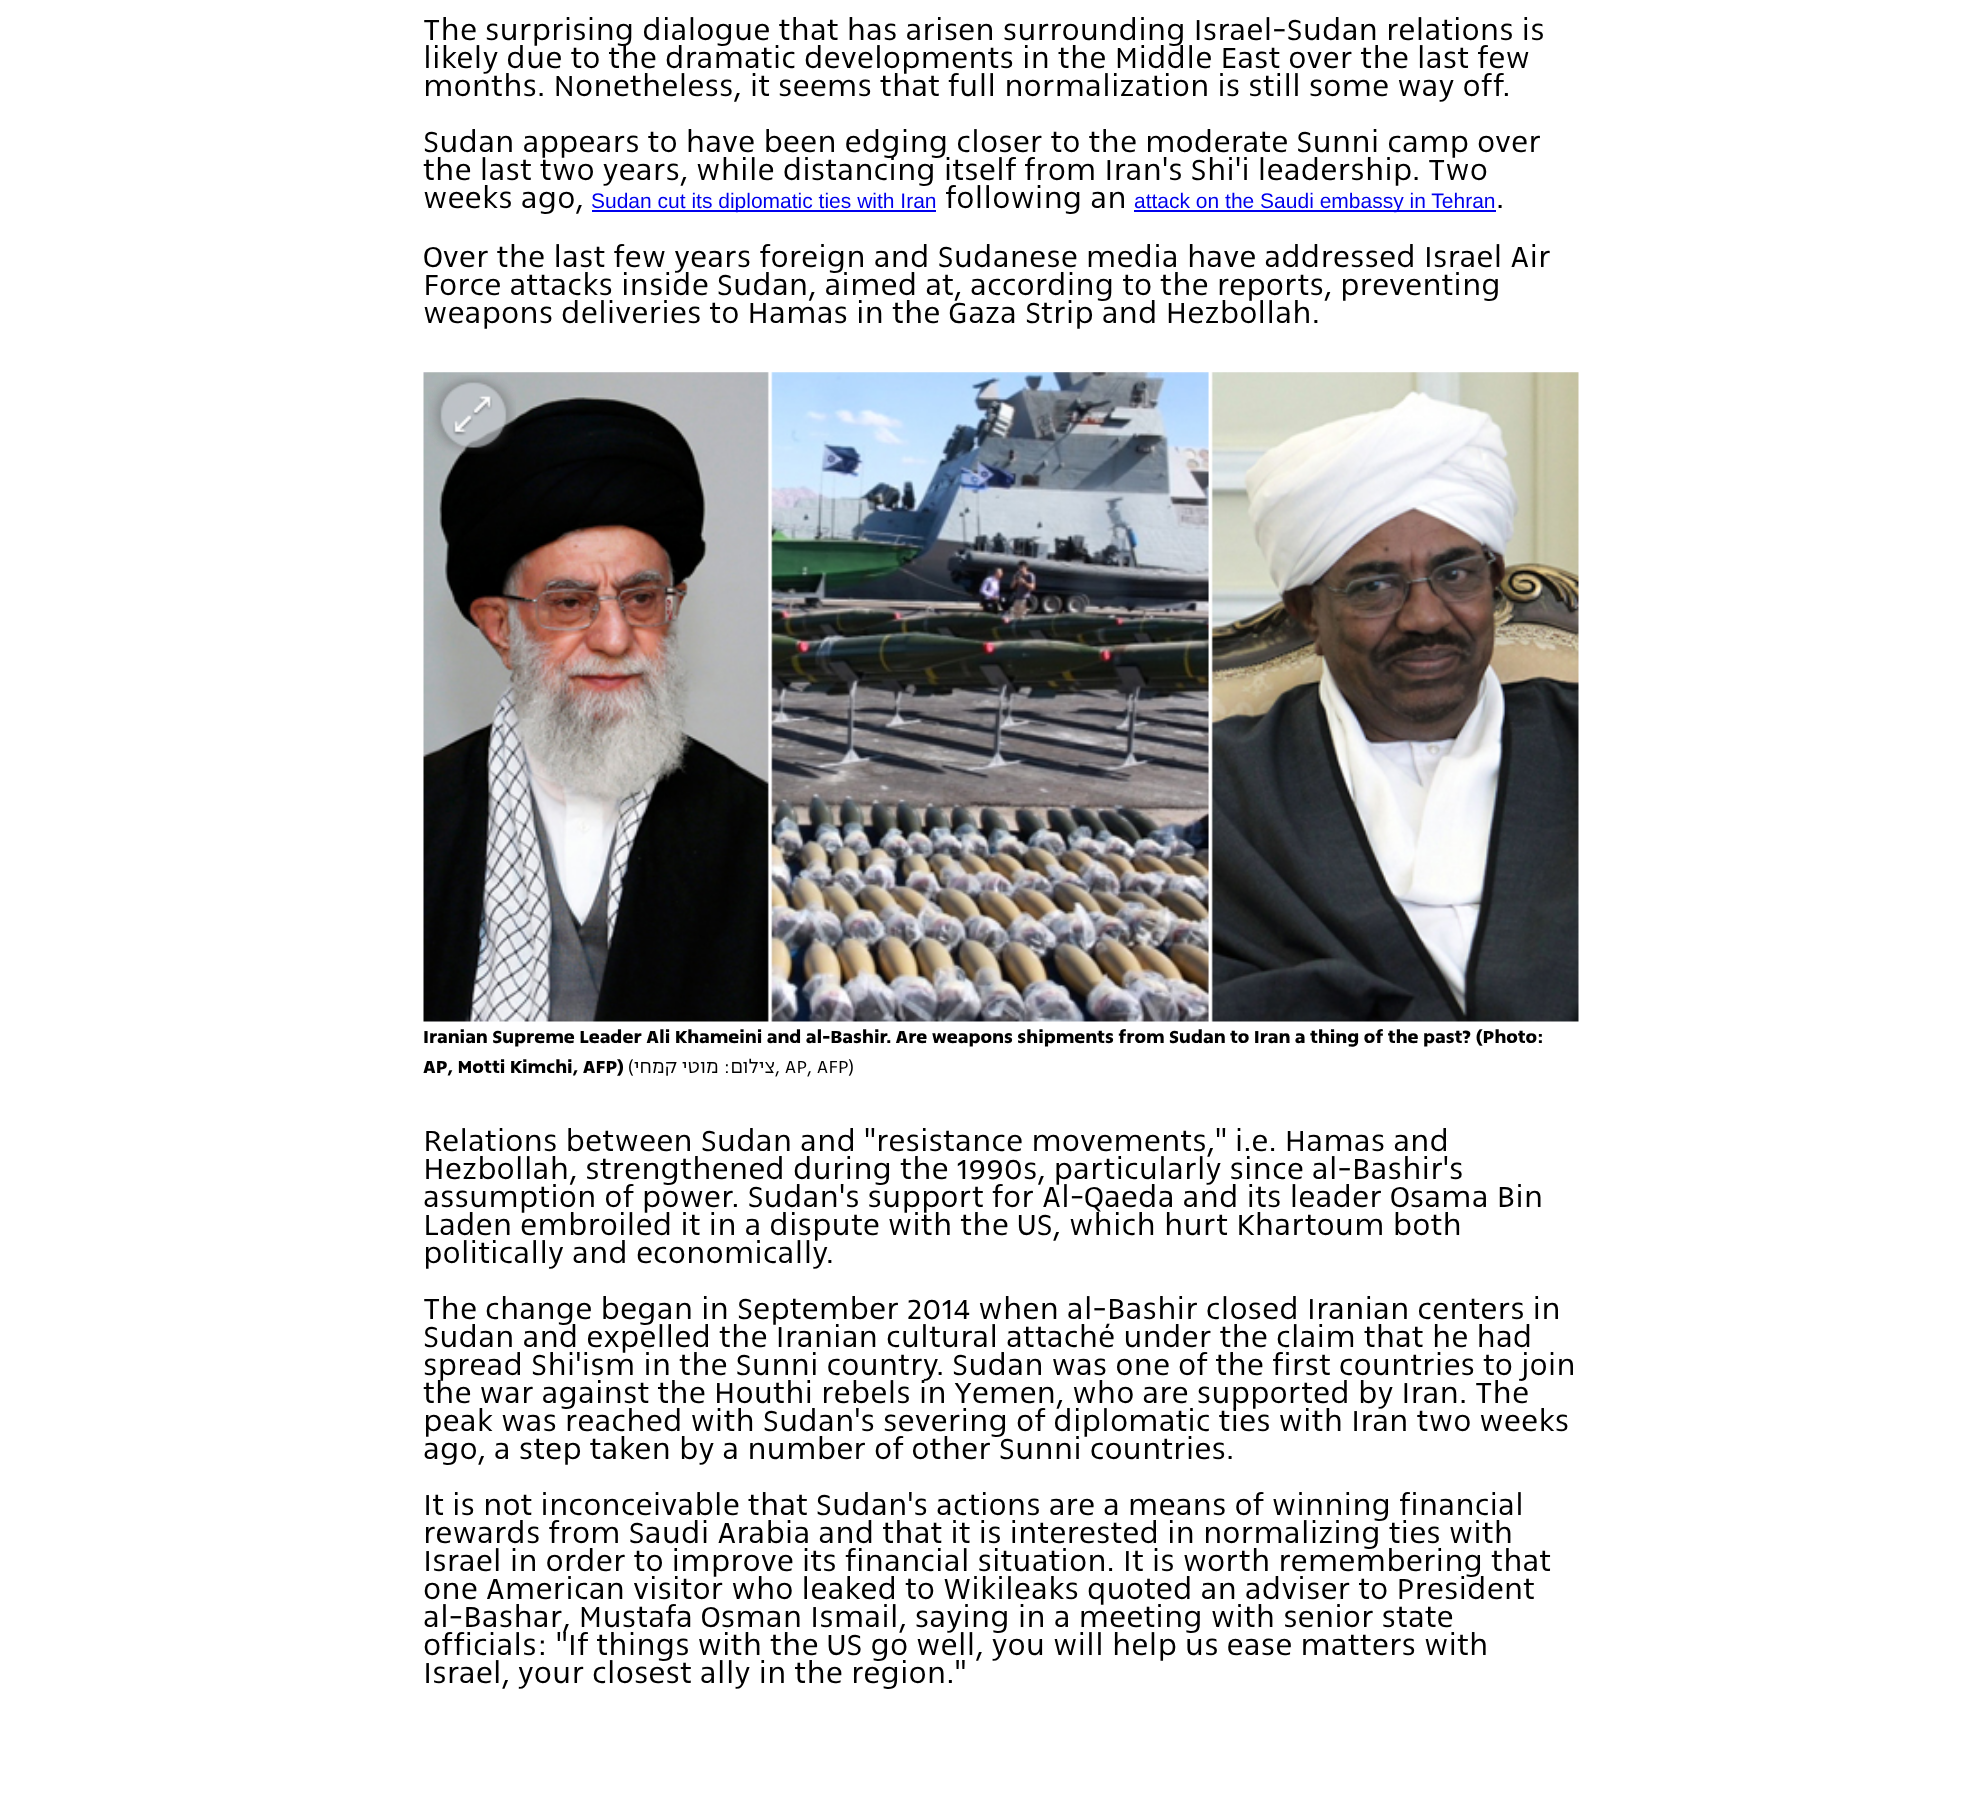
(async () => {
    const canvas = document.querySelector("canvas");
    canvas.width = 1964;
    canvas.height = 1812;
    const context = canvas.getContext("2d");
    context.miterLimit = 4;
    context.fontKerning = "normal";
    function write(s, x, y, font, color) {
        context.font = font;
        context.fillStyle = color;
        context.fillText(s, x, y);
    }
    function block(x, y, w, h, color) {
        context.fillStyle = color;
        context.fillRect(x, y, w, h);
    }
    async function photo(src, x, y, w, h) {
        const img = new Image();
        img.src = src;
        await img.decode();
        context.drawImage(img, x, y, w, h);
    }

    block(0, 0, 1964, 1812, "rgb(255, 255, 255)");
    write("The surprising dialogue that has arisen surrounding Israel-Sudan relations is", 423, 40, "300 35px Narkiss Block", "rgb(0, 0, 0)");
    write("likely due to the dramatic developments in the Middle East over the last few", 423, 68, "300 35px Narkiss Block", "rgb(0, 0, 0)");
    write("months. Nonetheless, it seems that full normalization is still some way off.", 423, 96, "300 35px Narkiss Block", "rgb(0, 0, 0)");
    write("Sudan appears to have been edging closer to the moderate Sunni camp over", 423, 152, "300 35px Narkiss Block", "rgb(0, 0, 0)");
    write("the last two years, while distancing itself from Iran's Shi'i leadership. Two", 423, 180, "300 35px Narkiss Block", "rgb(0, 0, 0)");
    write("weeks ago,", 423, 208, "300 35px Narkiss Block", "rgb(0, 0, 0)");
    block(592, 210, 344, 2, "rgb(0, 0, 238)");
    write("Sudan cut its diplomatic ties with Iran", 591, 208, "21px Liberation Sans", "rgb(0, 0, 238)");
    write("following an", 945, 208, "300 35px Narkiss Block", "rgb(0, 0, 0)");
    block(1134, 210, 362, 2, "rgb(0, 0, 238)");
    write("attack on the Saudi embassy in Tehran", 1134, 208, "21px Liberation Sans", "rgb(0, 0, 238)");
    write(".", 1496, 208, "300 35px Narkiss Block", "rgb(0, 0, 0)");
    write("Over the last few years foreign and Sudanese media have addressed Israel Air", 423, 267, "300 35px Narkiss Block", "rgb(0, 0, 0)");
    write("Force attacks inside Sudan, aimed at, according to the reports, preventing", 423, 295, "300 35px Narkiss Block", "rgb(0, 0, 0)");
    write("weapons deliveries to Hamas in the Gaza Strip and Hezbollah.", 423, 323, "300 35px Narkiss Block", "rgb(0, 0, 0)");
    await photo("media/1.png", 423, 372, 1156, 650);
    await photo("media/2.png", 428, 375, 88, 79);
    write("Iranian Supreme Leader Ali Khameini and al-Bashir. Are weapons shipments from Sudan to Iran a thing of the past? (Photo:", 423, 1043, "bold 21px Narkiss Block", "rgb(0, 0, 0)");
    write("AP, Motti Kimchi, AFP)", 423, 1073, "bold 21px Narkiss Block", "rgb(0, 0, 0)");
    write("(", 628, 1073, "300 21px Narkiss Block", "rgb(0, 0, 0)");
    context.direction = "rtl";
    write("צילום: מוטי קמחי", 775, 1073, "300 21px Narkiss Block", "rgb(0, 0, 0)");
    context.direction = "ltr";
    write(", AP, AFP)", 775, 1073, "300 21px Narkiss Block", "rgb(0, 0, 0)");
    write("Relations between Sudan and \"resistance movements,\" i.e. Hamas and", 423, 1151, "300 35px Narkiss Block", "rgb(0, 0, 0)");
    write("Hezbollah, strengthened during the 1990s, particularly since al-Bashir's", 423, 1179, "300 35px Narkiss Block", "rgb(0, 0, 0)");
    write("assumption of power. Sudan's support for Al-Qaeda and its leader Osama Bin", 423, 1207, "300 35px Narkiss Block", "rgb(0, 0, 0)");
    write("Laden embroiled it in a dispute with the US, which hurt Khartoum both", 423, 1235, "300 35px Narkiss Block", "rgb(0, 0, 0)");
    write("politically and economically.", 423, 1263, "300 35px Narkiss Block", "rgb(0, 0, 0)");
    write("The change began in September 2014 when al-Bashir closed Iranian centers in", 423, 1319, "300 35px Narkiss Block", "rgb(0, 0, 0)");
    write("Sudan and expelled the Iranian cultural attaché under the claim that he had", 423, 1347, "300 35px Narkiss Block", "rgb(0, 0, 0)");
    write("spread Shi'ism in the Sunni country. Sudan was one of the first countries to join", 423, 1375, "300 35px Narkiss Block", "rgb(0, 0, 0)");
    write("the war against the Houthi rebels in Yemen, who are supported by Iran. The", 423, 1403, "300 35px Narkiss Block", "rgb(0, 0, 0)");
    write("peak was reached with Sudan's severing of diplomatic ties with Iran two weeks", 423, 1431, "300 35px Narkiss Block", "rgb(0, 0, 0)");
    write("ago, a step taken by a number of other Sunni countries.", 423, 1459, "300 35px Narkiss Block", "rgb(0, 0, 0)");
    write("It is not inconceivable that Sudan's actions are a means of winning financial", 423, 1515, "300 35px Narkiss Block", "rgb(0, 0, 0)");
    write("rewards from Saudi Arabia and that it is interested in normalizing ties with", 423, 1543, "300 35px Narkiss Block", "rgb(0, 0, 0)");
    write("Israel in order to improve its financial situation. It is worth remembering that", 423, 1571, "300 35px Narkiss Block", "rgb(0, 0, 0)");
    write("one American visitor who leaked to Wikileaks quoted an adviser to President", 423, 1599, "300 35px Narkiss Block", "rgb(0, 0, 0)");
    write("al-Bashar, Mustafa Osman Ismail, saying in a meeting with senior state", 423, 1627, "300 35px Narkiss Block", "rgb(0, 0, 0)");
    write("officials: \"If things with the US go well, you will help us ease matters with", 423, 1655, "300 35px Narkiss Block", "rgb(0, 0, 0)");
    write("Israel, your closest ally in the region.\"", 423, 1683, "300 35px Narkiss Block", "rgb(0, 0, 0)");
})();
